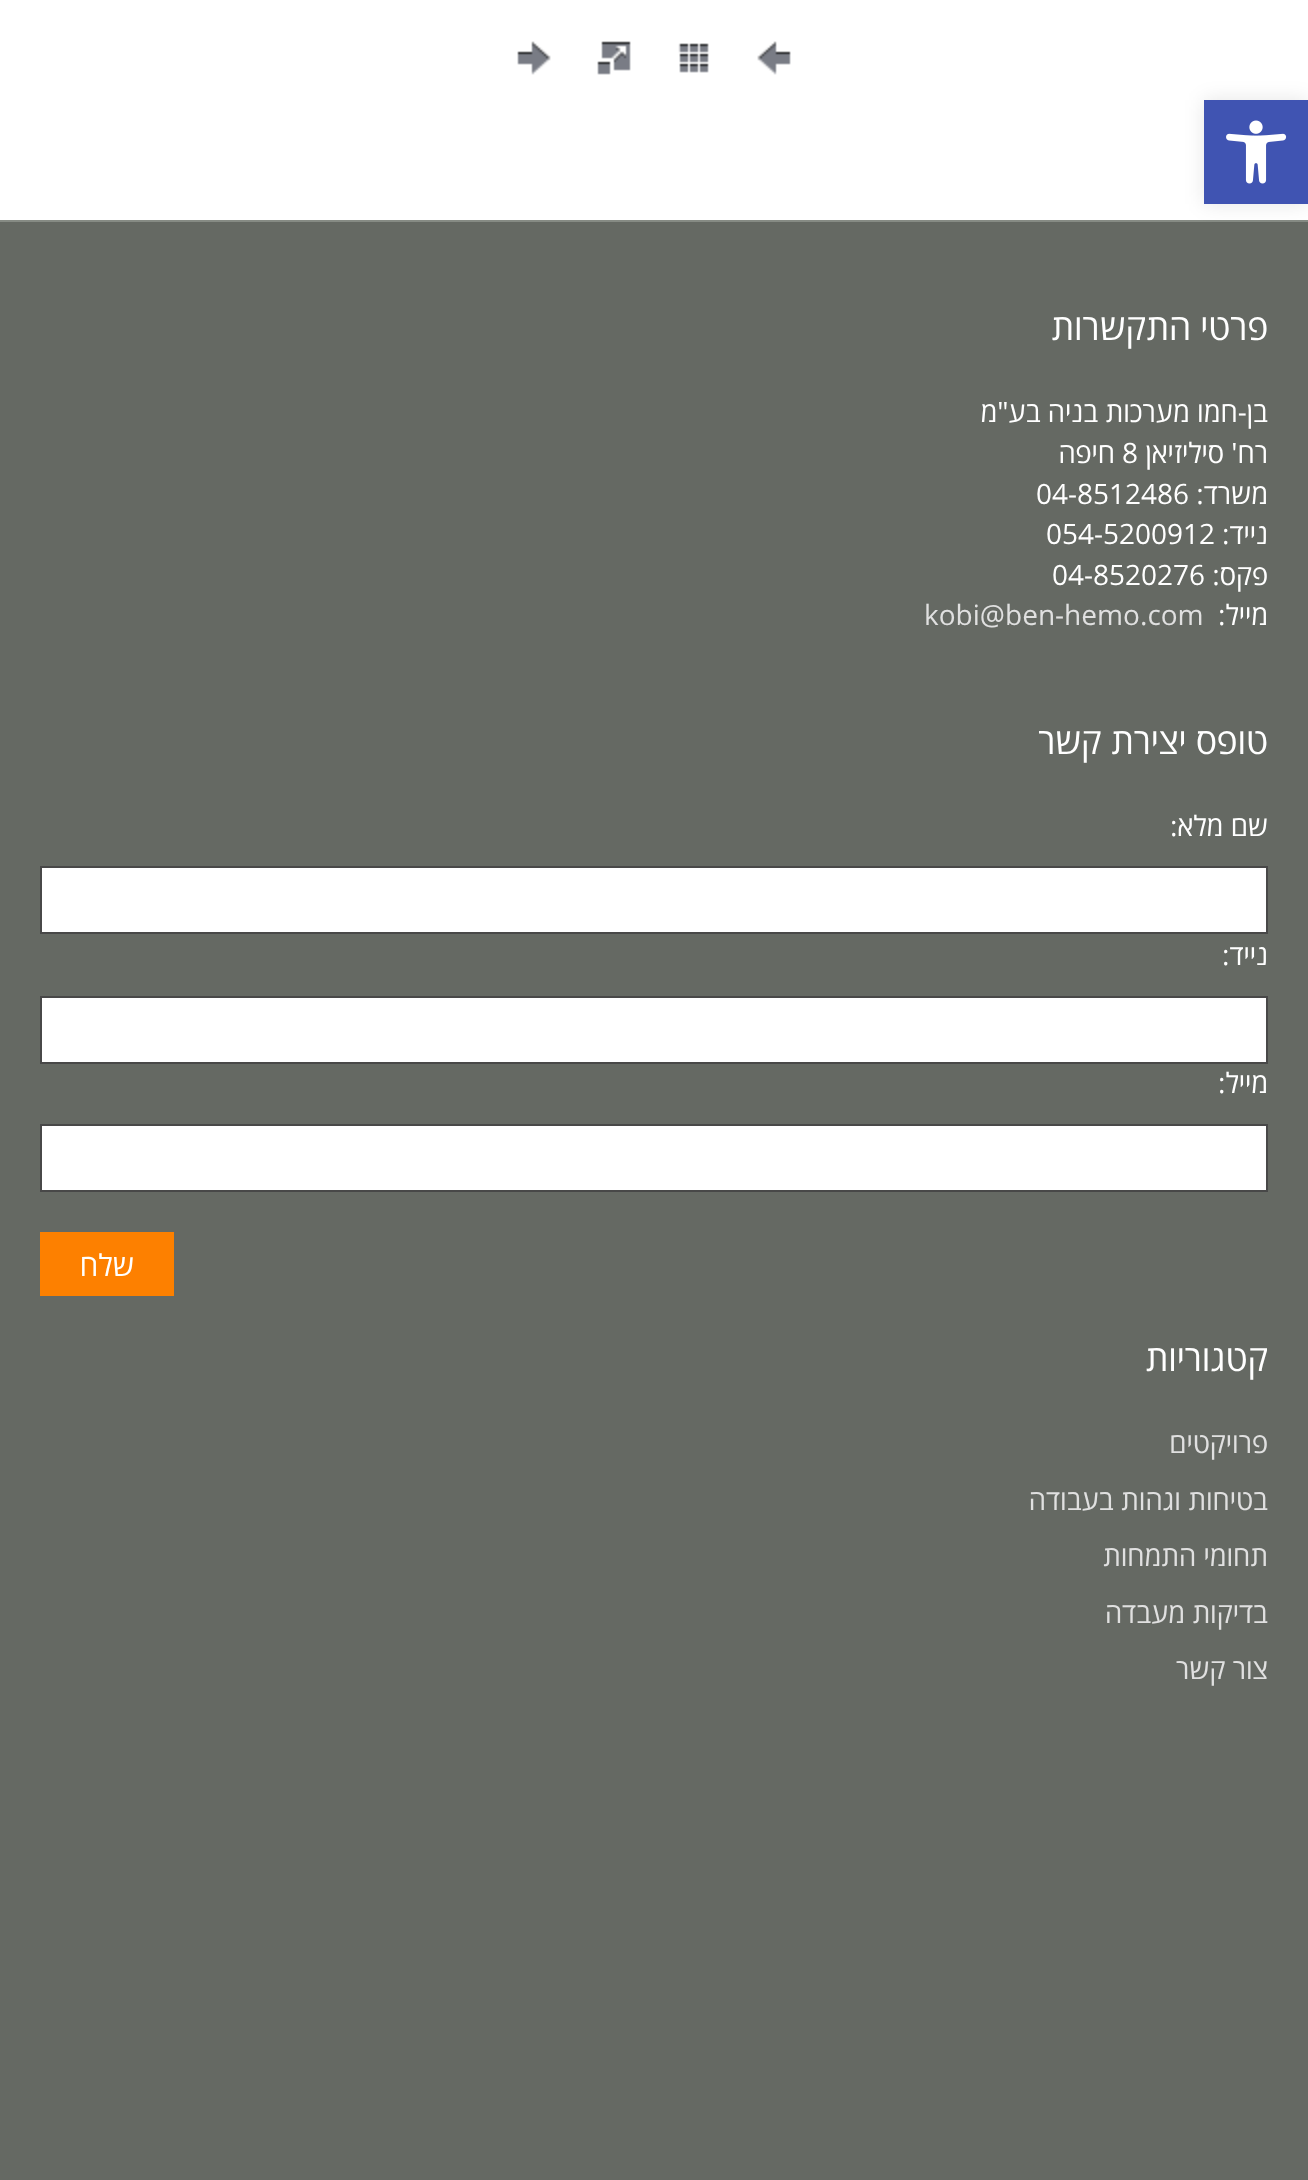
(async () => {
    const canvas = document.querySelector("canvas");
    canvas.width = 1308;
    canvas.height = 2180;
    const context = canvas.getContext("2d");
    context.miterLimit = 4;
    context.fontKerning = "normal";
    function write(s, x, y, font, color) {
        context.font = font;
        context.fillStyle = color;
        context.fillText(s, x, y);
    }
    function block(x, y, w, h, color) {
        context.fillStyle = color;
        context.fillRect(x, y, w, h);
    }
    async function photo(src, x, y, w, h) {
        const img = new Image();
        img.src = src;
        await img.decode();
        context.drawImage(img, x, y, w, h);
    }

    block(0, 0, 1308, 2180, "rgb(255, 255, 255)");
    block(0, 222, 1308, 1958, "rgb(101, 105, 99)");
    block(0, 220, 1308, 2, "rgb(134, 139, 132)");
    context.fillStyle = "rgba(0, 0, 0, 0.1)";
    context.filter = "blur(10px)";
    context.beginPath();
    context.rect(1204, 100, 104, 104);
    context.fill();
    context.filter = "none";
    block(1204, 100, 104, 104, "rgb(64, 84, 178)");
    await photo("media/1.png", 1226, 120, 61, 64);
    await photo("media/2.png", 757, 41, 34, 34);
    await photo("media/3.png", 678, 43, 31, 30);
    await photo("media/4.png", 597, 41, 34, 34);
    await photo("media/5.png", 517, 41, 34, 34);
    context.direction = "rtl";
    write("פרטי התקשרות", 1268, 340, "36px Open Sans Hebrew", "rgb(255, 255, 255)");
    write("בן-חמו מערכות בניה בע\"מ", 1268, 422, "28px Open Sans Hebrew", "rgb(255, 255, 255)");
    write("רח' סיליזיאן", 1268, 463, "28px Open Sans Hebrew", "rgb(255, 255, 255)");
    context.direction = "ltr";
    write("8", 1122, 463, "28px Open Sans Hebrew", "rgb(255, 255, 255)");
    context.direction = "rtl";
    write("חיפה", 1115, 463, "28px Open Sans Hebrew", "rgb(255, 255, 255)");
    write("משרד:", 1268, 504, "28px Open Sans Hebrew", "rgb(255, 255, 255)");
    context.direction = "ltr";
    write("04-8512486", 1036, 504, "28px Open Sans Hebrew", "rgb(255, 255, 255)");
    context.direction = "rtl";
    write("נייד:", 1268, 544, "28px Open Sans Hebrew", "rgb(255, 255, 255)");
    context.direction = "ltr";
    write("054-5200912", 1046, 544, "28px Open Sans Hebrew", "rgb(255, 255, 255)");
    context.direction = "rtl";
    write("פקס:", 1268, 585, "28px Open Sans Hebrew", "rgb(255, 255, 255)");
    context.direction = "ltr";
    write("04-8520276", 1052, 585, "28px Open Sans Hebrew", "rgb(255, 255, 255)");
    context.direction = "rtl";
    write("מייל:", 1268, 625, "28px Open Sans Hebrew", "rgb(255, 255, 255)");
    context.direction = "ltr";
    write("kobi@ben-hemo.com", 924, 625, "28px Open Sans Hebrew", "rgb(224, 224, 224)");
    context.direction = "rtl";
    write("טופס יצירת קשר", 1268, 754, "36px Open Sans Hebrew", "rgb(255, 255, 255)");
    write("שם מלא:", 1268, 836, "28px Open Sans Hebrew", "rgb(255, 255, 255)");
    context.beginPath();
    context.rect(41, 867, 1226, 66);
    context.fill();
    context.strokeStyle = "rgb(72, 72, 72)";
    context.lineWidth = 2;
    context.stroke();
    write("נייד:", 1268, 965, "28px Open Sans Hebrew", "rgb(255, 255, 255)");
    context.beginPath();
    context.rect(41, 997, 1226, 66);
    context.fill();
    context.stroke();
    write("מייל:", 1268, 1093, "28px Open Sans Hebrew", "rgb(255, 255, 255)");
    context.beginPath();
    context.rect(41, 1125, 1226, 66);
    context.fill();
    context.stroke();
    block(40, 1232, 134, 64, "rgb(253, 128, 0)");
    write("שלח", 134, 1276, "30px Open Sans Hebrew", "rgb(255, 255, 255)");
    write("קטגוריות", 1268, 1371, "36px Open Sans Hebrew", "rgb(255, 255, 255)");
    write("פרויקטים", 1268, 1453, "28px Open Sans Hebrew", "rgb(224, 224, 224)");
    write("בטיחות וגהות בעבודה", 1268, 1510, "28px Open Sans Hebrew", "rgb(224, 224, 224)");
    write("תחומי התמחות", 1268, 1566, "28px Open Sans Hebrew", "rgb(224, 224, 224)");
    write("בדיקות מעבדה", 1268, 1623, "28px Open Sans Hebrew", "rgb(224, 224, 224)");
    write("צור קשר", 1268, 1679, "28px Open Sans Hebrew", "rgb(224, 224, 224)");
})();
